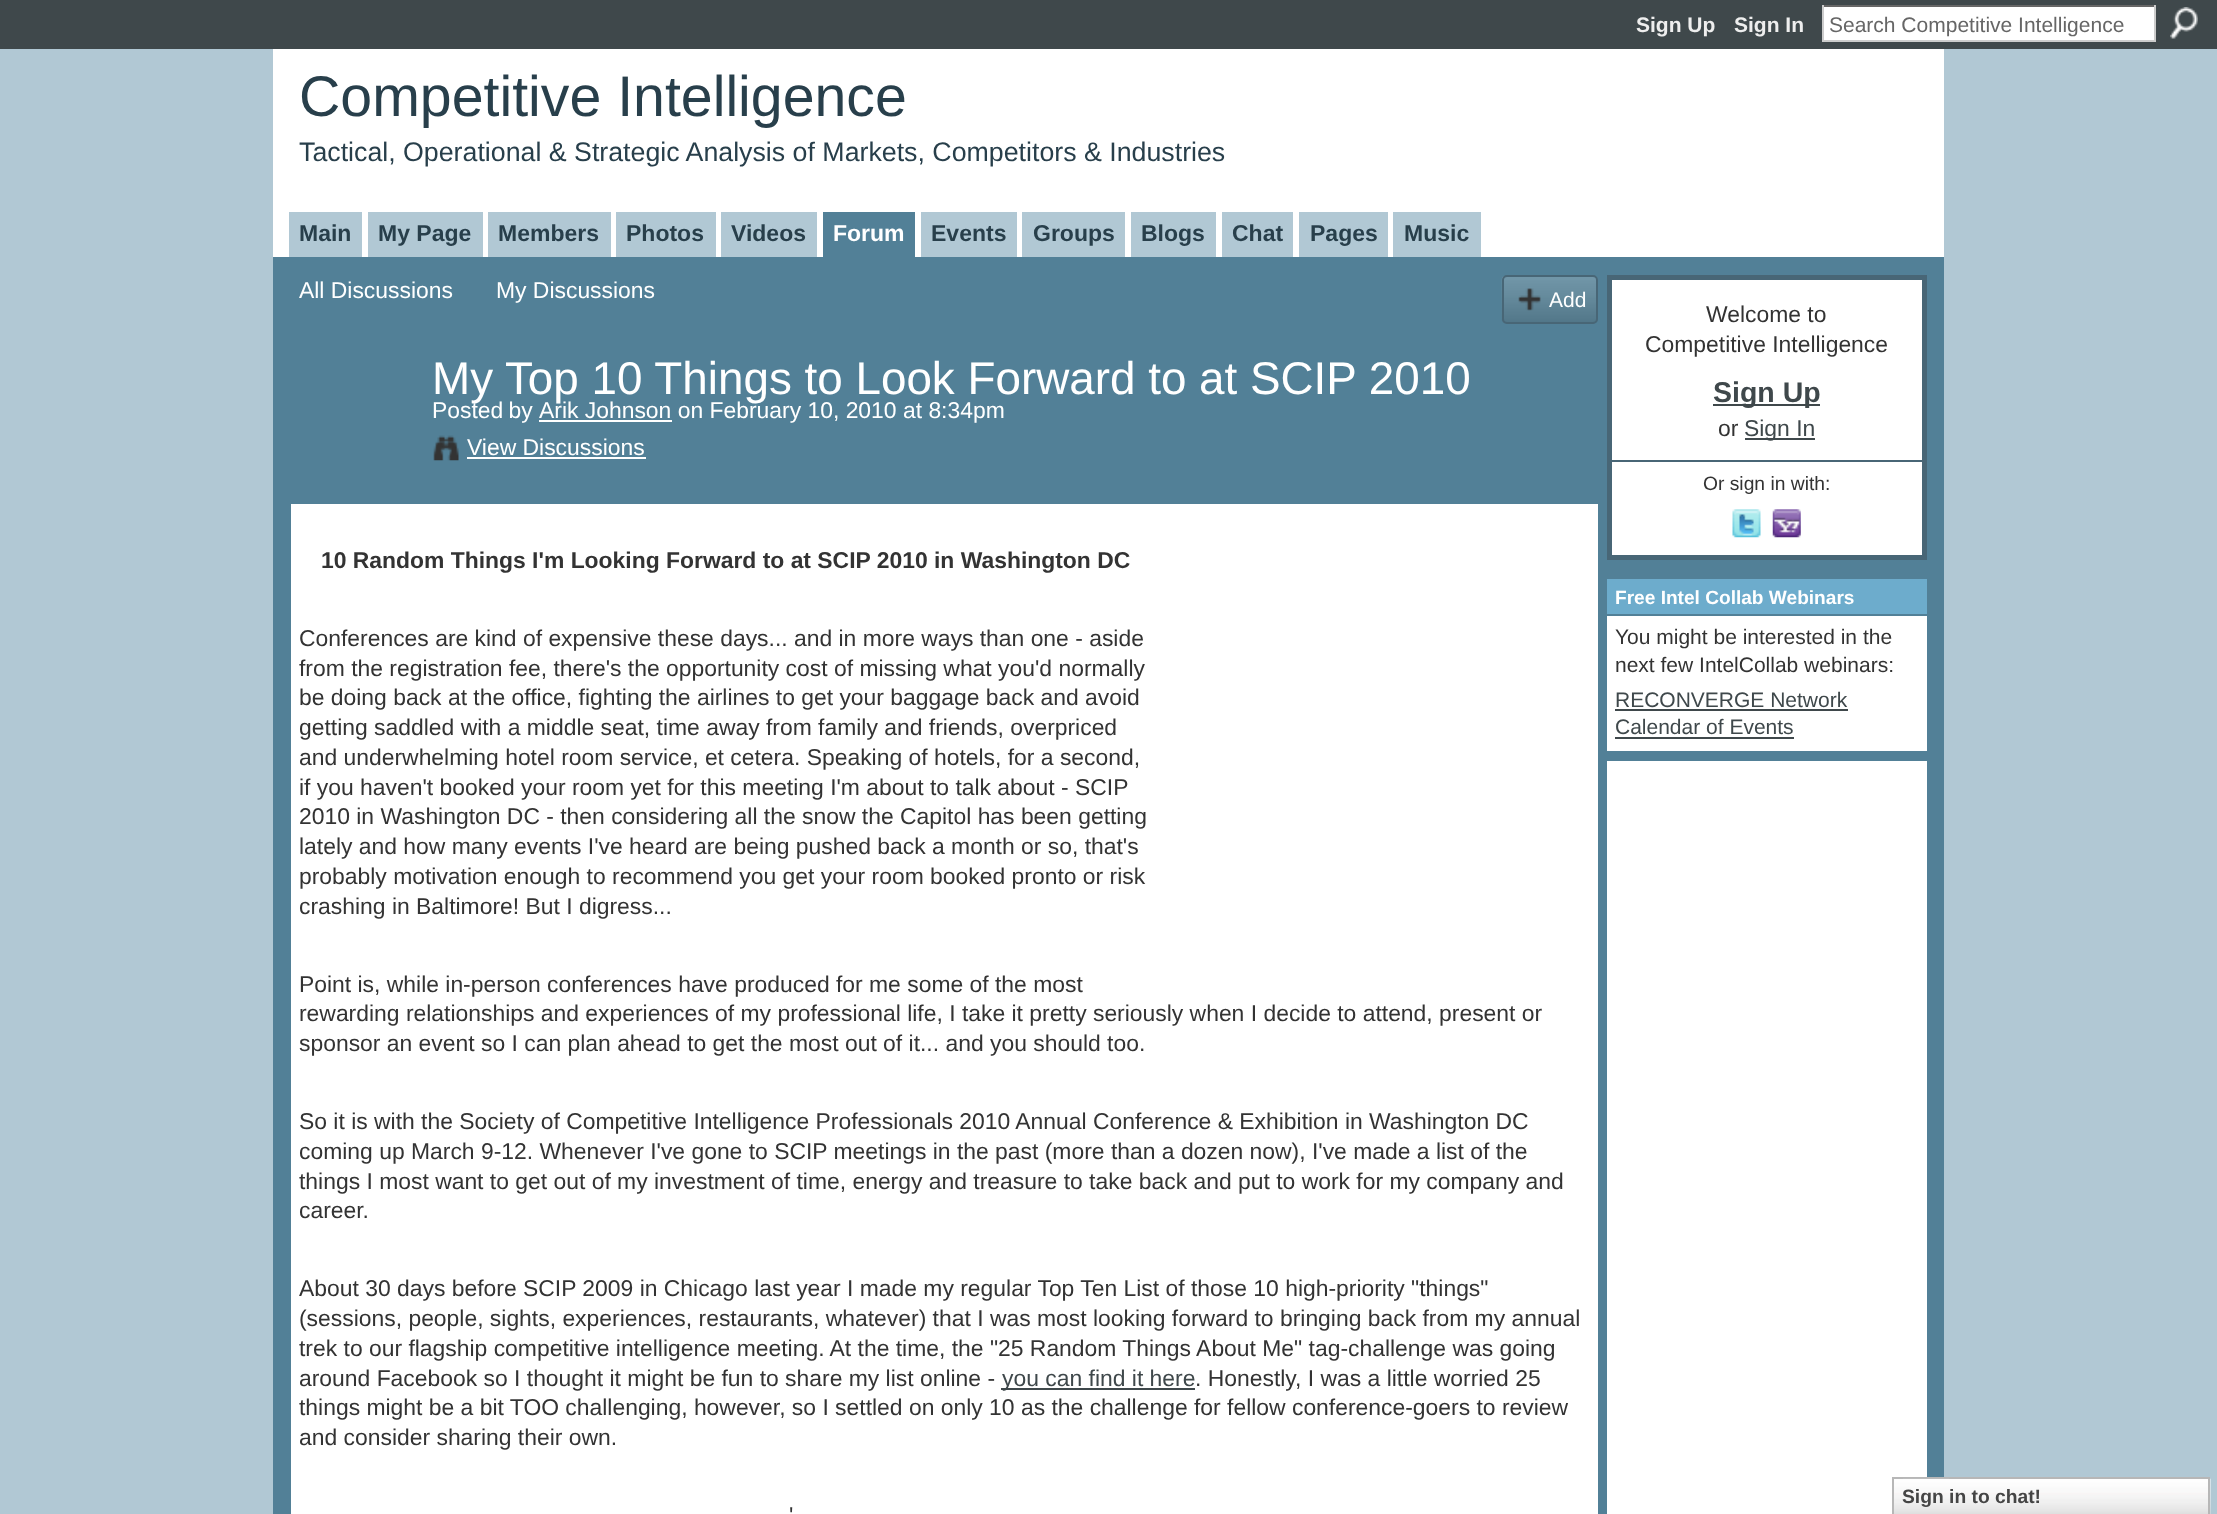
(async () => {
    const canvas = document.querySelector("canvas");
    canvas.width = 2217;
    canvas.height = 1514;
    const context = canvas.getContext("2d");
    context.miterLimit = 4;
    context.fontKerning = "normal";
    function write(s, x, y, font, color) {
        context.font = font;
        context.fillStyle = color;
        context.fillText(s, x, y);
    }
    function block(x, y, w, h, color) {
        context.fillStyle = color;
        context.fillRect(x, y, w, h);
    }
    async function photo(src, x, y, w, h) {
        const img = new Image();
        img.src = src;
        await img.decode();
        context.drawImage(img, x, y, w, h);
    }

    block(0, 0, 2217, 1514, "rgb(177, 200, 212)");
    block(0, 0, 2217, 49, "rgb(63, 72, 75)");
    write("Sign Up", 1636, 32, "bold 21px Liberation Sans", "rgb(238, 238, 238)");
    write("Sign In", 1734, 32, "bold 21px Liberation Sans", "rgb(238, 238, 238)");
    block(1824, 7, 330, 33, "rgb(255, 255, 255)");
    block(1822, 5, 334, 2, "rgb(102, 102, 102)");
    block(2154, 5, 2, 37, "rgb(204, 204, 204)");
    block(1822, 40, 334, 2, "rgb(204, 204, 204)");
    block(1822, 5, 2, 37, "rgb(204, 204, 204)");
    write("Search Competitive Intelligence", 1829, 32, "21px Liberation Sans", "rgb(102, 102, 102)");
    await photo("media/1.png", 2170, 7, 28, 32);
    block(273, 49, 1671, 208, "rgb(255, 255, 255)");
    write("Competitive Intelligence", 299, 116, "57.25px Liberation Sans", "rgb(40, 63, 75)");
    write("Tactical, Operational & Strategic Analysis of Markets, Competitors & Industries", 299, 161, "26.75px Liberation Sans", "rgb(40, 63, 75)");
    block(289, 212, 73, 45, "rgb(177, 200, 212)");
    write("Main", 299, 241, "bold 23px Liberation Sans", "rgb(40, 63, 75)");
    block(368, 212, 115, 45, "rgb(177, 200, 212)");
    write("My Page", 378, 241, "bold 23px Liberation Sans", "rgb(40, 63, 75)");
    block(488, 212, 123, 45, "rgb(177, 200, 212)");
    write("Members", 498, 241, "bold 23px Liberation Sans", "rgb(40, 63, 75)");
    block(616, 212, 100, 45, "rgb(177, 200, 212)");
    write("Photos", 626, 241, "bold 23px Liberation Sans", "rgb(40, 63, 75)");
    block(721, 212, 96, 45, "rgb(177, 200, 212)");
    write("Videos", 731, 241, "bold 23px Liberation Sans", "rgb(40, 63, 75)");
    block(823, 212, 92, 45, "rgb(82, 128, 151)");
    write("Forum", 833, 241, "bold 23px Liberation Sans", "rgb(255, 255, 255)");
    block(921, 212, 96, 45, "rgb(177, 200, 212)");
    write("Events", 931, 241, "bold 23px Liberation Sans", "rgb(40, 63, 75)");
    block(1022, 212, 103, 45, "rgb(177, 200, 212)");
    write("Groups", 1033, 241, "bold 23px Liberation Sans", "rgb(40, 63, 75)");
    block(1131, 212, 85, 45, "rgb(177, 200, 212)");
    write("Blogs", 1141, 241, "bold 23px Liberation Sans", "rgb(40, 63, 75)");
    block(1222, 212, 71, 45, "rgb(177, 200, 212)");
    write("Chat", 1232, 241, "bold 23px Liberation Sans", "rgb(40, 63, 75)");
    block(1299, 212, 89, 45, "rgb(177, 200, 212)");
    write("Pages", 1310, 241, "bold 23px Liberation Sans", "rgb(40, 63, 75)");
    block(1393, 212, 88, 45, "rgb(177, 200, 212)");
    write("Music", 1404, 241, "bold 23px Liberation Sans", "rgb(40, 63, 75)");
    block(273, 257, 1671, 1257, "rgb(82, 128, 151)");
    write("All Discussions", 299, 298, "22.9px Liberation Sans", "rgb(255, 255, 255)");
    write("My Discussions", 496, 298, "22.9px Liberation Sans", "rgb(255, 255, 255)");
    await photo("media/2.png", 1501, 276, 97, 48);
    context.beginPath();
    context.roundRect(1503, 276, 94, 47, 4);
    context.strokeStyle = "rgb(72, 102, 118)";
    context.lineWidth = 2;
    context.stroke();
    await photo("media/3.png", 1518, 288, 23, 23);
    write("Add", 1549, 307, "21px Liberation Sans", "rgb(255, 255, 255)");
    write("My Top 10 Things to Look Forward to at SCIP 2010", 432, 394, "45.8px Liberation Sans", "rgb(255, 255, 255)");
    context.wordSpacing = "-1px";
    write("Posted by", 432, 418, "22.9px Liberation Sans", "rgb(255, 255, 255)");
    block(539, 420, 133, 2, "rgb(255, 255, 255)");
    context.wordSpacing = "0px";
    write("Arik Johnson on February 10, 2010 at 8:34pm", 539, 418, "22.9px Liberation Sans", "rgb(255, 255, 255)");
    await photo("media/4.png", 433, 435, 26, 26);
    write("View Discussions", 467, 455, "22.9px Liberation Sans", "rgb(255, 255, 255)");
    block(467, 457, 179, 2, "rgb(255, 255, 255)");
    block(291, 504, 1307, 1010, "rgb(255, 255, 255)");
    write("10 Random Things I'm Looking Forward to at SCIP 2010 in Washington DC", 321, 568, "bold 22.9px Liberation Sans", "rgb(51, 51, 51)");
    write("Conferences are kind of expensive these days... and in more ways than one - aside", 299, 646, "22.9px Liberation Sans", "rgb(51, 51, 51)");
    write("from the registration fee, there's the opportunity cost of missing what you'd normally", 299, 676, "22.9px Liberation Sans", "rgb(51, 51, 51)");
    write("be doing back at the office, fighting the airlines to get your baggage back and avoid", 299, 705, "22.9px Liberation Sans", "rgb(51, 51, 51)");
    write("getting saddled with a middle seat, time away from family and friends, overpriced", 299, 735, "22.9px Liberation Sans", "rgb(51, 51, 51)");
    write("and underwhelming hotel room service, et cetera. Speaking of hotels, for a second,", 299, 765, "22.9px Liberation Sans", "rgb(51, 51, 51)");
    write("if you haven't booked your room yet for this meeting I'm about to talk about - SCIP", 299, 795, "22.9px Liberation Sans", "rgb(51, 51, 51)");
    write("2010 in Washington DC - then considering all the snow the Capitol has been getting", 299, 824, "22.9px Liberation Sans", "rgb(51, 51, 51)");
    write("lately and how many events I've heard are being pushed back a month or so, that's", 299, 854, "22.9px Liberation Sans", "rgb(51, 51, 51)");
    write("probably motivation enough to recommend you get your room booked pronto or risk", 299, 884, "22.9px Liberation Sans", "rgb(51, 51, 51)");
    write("crashing in Baltimore! But I digress...", 299, 914, "22.9px Liberation Sans", "rgb(51, 51, 51)");
    write("Point is, while in-person conferences have produced for me some of the most", 299, 992, "22.9px Liberation Sans", "rgb(51, 51, 51)");
    write("rewarding relationships and experiences of my professional life, I take it pretty seriously when I decide to attend, present or", 299, 1021, "22.9px Liberation Sans", "rgb(51, 51, 51)");
    write("sponsor an event so I can plan ahead to get the most out of it... and you should too.", 299, 1051, "22.9px Liberation Sans", "rgb(51, 51, 51)");
    write("So it is with the Society of Competitive Intelligence Professionals 2010 Annual Conference & Exhibition in Washington DC", 299, 1129, "22.9px Liberation Sans", "rgb(51, 51, 51)");
    write("coming up March 9-12. Whenever I've gone to SCIP meetings in the past (more than a dozen now), I've made a list of the", 299, 1159, "22.9px Liberation Sans", "rgb(51, 51, 51)");
    write("things I most want to get out of my investment of time, energy and treasure to take back and put to work for my company and", 299, 1189, "22.9px Liberation Sans", "rgb(51, 51, 51)");
    write("career.", 299, 1218, "22.9px Liberation Sans", "rgb(51, 51, 51)");
    write("About 30 days before SCIP 2009 in Chicago last year I made my regular Top Ten List of those 10 high-priority \"things\"", 299, 1296, "22.9px Liberation Sans", "rgb(51, 51, 51)");
    write("(sessions, people, sights, experiences, restaurants, whatever) that I was most looking forward to bringing back from my annual", 299, 1326, "22.9px Liberation Sans", "rgb(51, 51, 51)");
    write("trek to our flagship competitive intelligence meeting. At the time, the \"25 Random Things About Me\" tag-challenge was going", 299, 1356, "22.9px Liberation Sans", "rgb(51, 51, 51)");
    write("around Facebook so I thought it might be fun to share my list online -", 299, 1386, "22.9px Liberation Sans", "rgb(51, 51, 51)");
    block(1001, 1388, 194, 2, "rgb(63, 72, 75)");
    write("you can find it here", 1002, 1386, "22.9px Liberation Sans", "rgb(63, 72, 75)");
    write(". Honestly, I was a little worried 25", 1195, 1386, "22.9px Liberation Sans", "rgb(51, 51, 51)");
    write("things might be a bit TOO challenging, however, so I settled on only 10 as the challenge for fellow conference-goers to review", 299, 1415, "22.9px Liberation Sans", "rgb(51, 51, 51)");
    write("and consider sharing their own.", 299, 1445, "22.9px Liberation Sans", "rgb(51, 51, 51)");
    write("'", 789, 1523, "22.9px Liberation Sans", "rgb(51, 51, 51)");
    context.fillStyle = "rgb(255, 255, 255)";
    context.beginPath();
    context.rect(1609.5, 277.5, 315, 280);
    context.fill();
    context.lineWidth = 5;
    context.stroke();
    write("Welcome to", 1706, 322, "22.9px Liberation Sans", "rgb(51, 51, 51)");
    write("Competitive Intelligence", 1645, 352, "22.9px Liberation Sans", "rgb(51, 51, 51)");
    block(1713, 404, 107, 2, "rgb(63, 72, 75)");
    write("Sign Up", 1713, 402, "bold 28.5px Liberation Sans", "rgb(63, 72, 75)");
    write("or", 1718, 436, "22.9px Liberation Sans", "rgb(51, 51, 51)");
    block(1745, 438, 70, 2, "rgb(63, 72, 75)");
    write("Sign In", 1744, 436, "22.9px Liberation Sans", "rgb(63, 72, 75)");
    block(1612, 460, 310, 2, "rgb(72, 102, 118)");
    write("Or sign in with:", 1703, 490, "19.25px Liberation Sans", "rgb(51, 51, 51)");
    await photo("media/5.png", 1732, 509, 29, 29);
    await photo("media/6.png", 1772, 509, 29, 29);
    block(1607, 579, 320, 35, "rgb(109, 172, 204)");
    write("Free Intel Collab Webinars", 1615, 604, "bold 19.1px Liberation Sans", "rgb(255, 255, 255)");
    block(1607, 616, 320, 135, "rgb(255, 255, 255)");
    write("You might be interested in the", 1615, 644, "21px Liberation Sans", "rgb(51, 51, 51)");
    write("next few IntelCollab webinars:", 1615, 672, "21px Liberation Sans", "rgb(51, 51, 51)");
    write("RECONVERGE Network", 1615, 707, "21px Liberation Sans", "rgb(63, 72, 75)");
    block(1615, 709, 233, 2, "rgb(63, 72, 75)");
    write("Calendar of Events", 1615, 734, "21px Liberation Sans", "rgb(63, 72, 75)");
    block(1615, 737, 179, 2, "rgb(63, 72, 75)");
    block(1607, 761, 320, 753, "rgb(255, 255, 255)");
    await photo("media/7.png", 1894, 1478, 317, 36);
    context.strokeStyle = "rgb(183, 183, 183)";
    context.lineWidth = 2;
    context.strokeRect(1893, 1478, 316, 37);
    block(1903, 1478, 46, 1, "rgb(187, 187, 187)");
    write("Sign in to chat!", 1902, 1503, "bold 19.25px Liberation Sans", "rgb(69, 69, 69)");
})();
